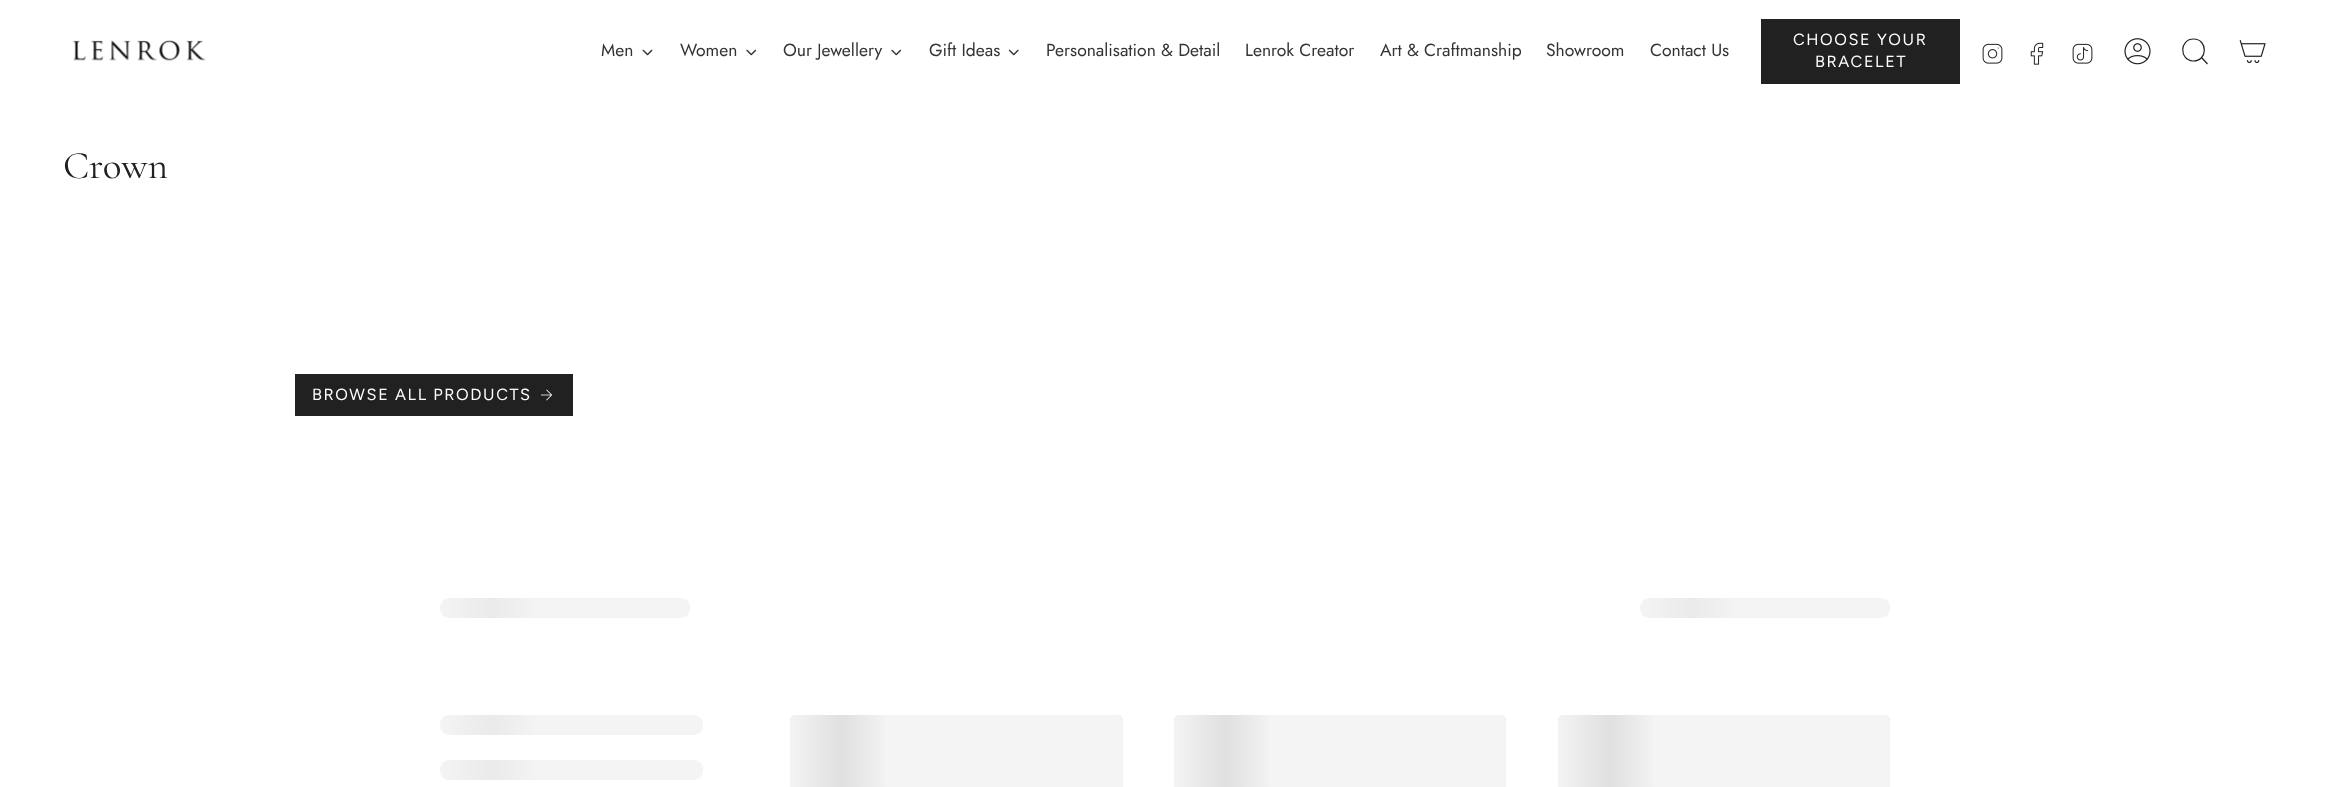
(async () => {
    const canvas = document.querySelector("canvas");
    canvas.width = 2329;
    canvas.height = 787;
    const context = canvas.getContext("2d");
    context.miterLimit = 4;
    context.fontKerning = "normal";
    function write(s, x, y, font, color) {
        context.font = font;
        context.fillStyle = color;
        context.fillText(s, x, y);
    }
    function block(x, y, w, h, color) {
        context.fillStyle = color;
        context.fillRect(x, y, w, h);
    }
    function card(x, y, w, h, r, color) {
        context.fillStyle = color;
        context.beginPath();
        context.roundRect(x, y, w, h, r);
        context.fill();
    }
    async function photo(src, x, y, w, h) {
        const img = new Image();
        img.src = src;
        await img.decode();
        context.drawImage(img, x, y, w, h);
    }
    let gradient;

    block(0, 0, 2329, 787, "rgb(255, 255, 255)");
    await photo("media/1.png", 72, 40, 134, 21);
    write("Men", 601, 56, "17.5px Jost", "rgb(51, 51, 51)");
    await photo("media/2.png", 642, 49, 11, 7);
    write("Women", 680, 56, "17.5px Jost", "rgb(51, 51, 51)");
    await photo("media/3.png", 746, 49, 11, 7);
    write("Our Jewellery", 783, 56, "17.5px Jost", "rgb(51, 51, 51)");
    await photo("media/3.png", 891, 49, 11, 7);
    write("Gift Ideas", 929, 56, "17.5px Jost", "rgb(51, 51, 51)");
    await photo("media/4.png", 1008, 49, 11, 7);
    write("Personalisation & Detail", 1046, 56, "17.5px Jost", "rgb(51, 51, 51)");
    write("Lenrok Creator", 1245, 56, "17.5px Jost", "rgb(51, 51, 51)");
    write("Art & Craftmanship", 1380, 56, "17.5px Jost", "rgb(51, 51, 51)");
    write("Showroom", 1546, 56, "17.5px Jost", "rgb(51, 51, 51)");
    write("Contact Us", 1650, 56, "17.5px Jost", "rgb(51, 51, 51)");
    block(1761, 19, 199, 65, "rgb(33, 33, 33)");
    context.letterSpacing = "1.6px";
    write("CHOOSE YOUR", 1793, 45, "16.25px Figtree", "rgb(255, 255, 255)");
    write("BRACELET", 1815, 67, "16.25px Figtree", "rgb(255, 255, 255)");
    await photo("media/5.png", 1982, 43, 21, 21);
    await photo("media/6.png", 2030, 42, 14, 23);
    await photo("media/7.png", 2072, 43, 21, 21);
    await photo("media/8.png", 2124, 38, 27, 27);
    context.beginPath();
    context.moveTo(2193.5, 39);
    context.bezierCurveTo(2208, 39, 2208, 61.5, 2193, 61);
    context.bezierCurveTo(2179, 60, 2179.5, 39, 2193.5, 39);
    context.closePath();
    context.moveTo(2201.5, 57.5);
    context.lineTo(2207.5, 64);
    context.strokeStyle = "rgb(33, 33, 33)";
    context.lineWidth = 1.2;
    context.stroke();
    await photo("media/9.png", 2239, 40, 27, 24);
    context.letterSpacing = "0px";
    write("Crown", 63, 178, "39px Cormorant", "rgb(33, 33, 33)");
    block(295, 374, 278, 42, "rgb(33, 33, 33)");
    context.letterSpacing = "1.6px";
    write("BROWSE ALL PRODUCTS", 312, 400, "16.25px Figtree", "rgb(255, 255, 255)");
    await photo("media/10.png", 540, 389, 12, 12);
    gradient = context.createLinearGradient(440, 608, 1190, 608);
    gradient.addColorStop(0, "rgb(244, 244, 244)");
    gradient.addColorStop(0.07, "rgb(234, 234, 234)");
    gradient.addColorStop(0.13, "rgb(244, 244, 244)");
    context.fillStyle = gradient;
    context.beginPath();
    context.roundRect(440, 598, 250, 20, 9);
    context.fill();
    gradient = context.createLinearGradient(1640, 608, 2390, 608);
    gradient.addColorStop(0, "rgb(244, 244, 244)");
    gradient.addColorStop(0.07, "rgb(234, 234, 234)");
    gradient.addColorStop(0.13, "rgb(244, 244, 244)");
    context.fillStyle = gradient;
    context.beginPath();
    context.roundRect(1640, 598, 250, 20, 9);
    context.fill();
    gradient = context.createLinearGradient(440, 725, 1190, 725);
    gradient.addColorStop(0, "rgb(244, 244, 244)");
    gradient.addColorStop(0.07, "rgb(234, 234, 234)");
    gradient.addColorStop(0.13, "rgb(244, 244, 244)");
    context.fillStyle = gradient;
    context.beginPath();
    context.roundRect(440, 715, 263, 20, 9);
    context.fill();
    gradient = context.createLinearGradient(440, 770, 1190, 770);
    gradient.addColorStop(0, "rgb(244, 244, 244)");
    gradient.addColorStop(0.07, "rgb(234, 234, 234)");
    gradient.addColorStop(0.13, "rgb(244, 244, 244)");
    context.fillStyle = gradient;
    context.beginPath();
    context.roundRect(440, 760, 263, 20, 9);
    context.fill();
    card(790, 715, 333, 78, 6, "rgb(204, 204, 204)");
    gradient = context.createLinearGradient(790, 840, 1540, 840);
    gradient.addColorStop(0, "rgb(244, 244, 244)");
    gradient.addColorStop(0.07, "rgba(229, 229, 229, 0.8)");
    gradient.addColorStop(0.13, "rgb(244, 244, 244)");
    context.fillStyle = gradient;
    context.beginPath();
    context.roundRect(790, 715, 333, 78, 6);
    context.fill();
    card(1174, 715, 332, 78, 6, "rgb(204, 204, 204)");
    gradient = context.createLinearGradient(1174, 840, 1924, 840);
    gradient.addColorStop(0, "rgb(244, 244, 244)");
    gradient.addColorStop(0.07, "rgba(229, 229, 229, 0.8)");
    gradient.addColorStop(0.13, "rgb(244, 244, 244)");
    context.fillStyle = gradient;
    context.beginPath();
    context.roundRect(1174, 715, 332, 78, 6);
    context.fill();
    card(1558, 715, 332, 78, 6, "rgb(204, 204, 204)");
    gradient = context.createLinearGradient(1558, 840, 2308, 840);
    gradient.addColorStop(0, "rgb(244, 244, 244)");
    gradient.addColorStop(0.07, "rgba(229, 229, 229, 0.8)");
    gradient.addColorStop(0.13, "rgb(244, 244, 244)");
    context.fillStyle = gradient;
    context.beginPath();
    context.roundRect(1558, 715, 332, 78, 6);
    context.fill();
})();
